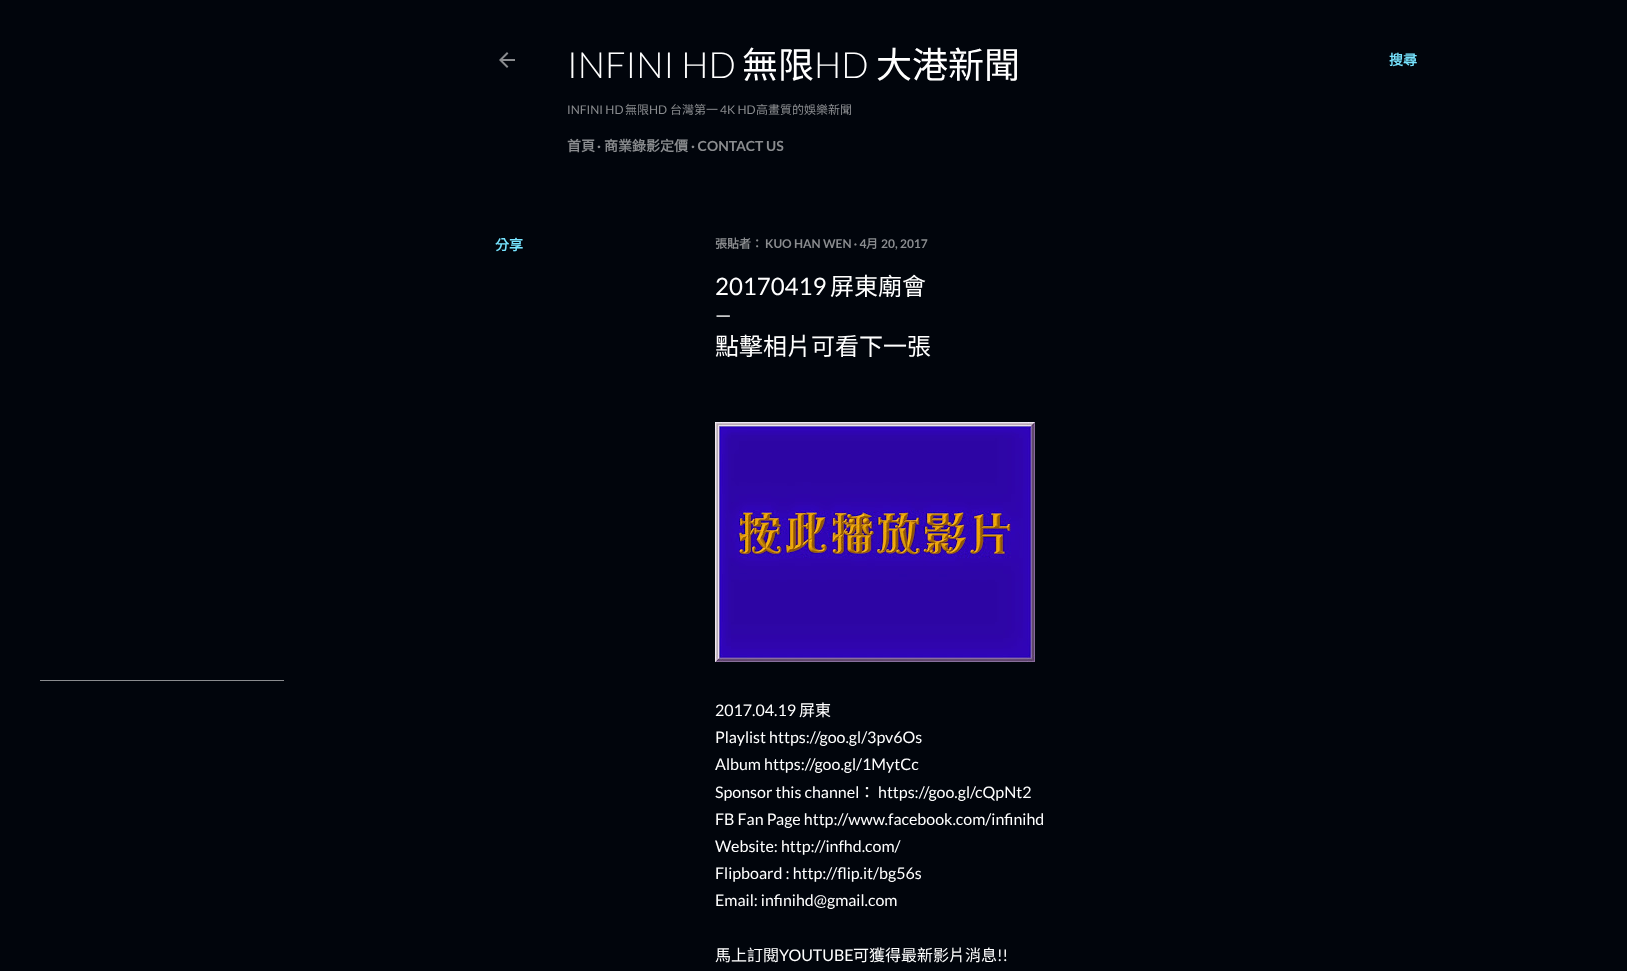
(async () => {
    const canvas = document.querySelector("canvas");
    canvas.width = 1627;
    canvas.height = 971;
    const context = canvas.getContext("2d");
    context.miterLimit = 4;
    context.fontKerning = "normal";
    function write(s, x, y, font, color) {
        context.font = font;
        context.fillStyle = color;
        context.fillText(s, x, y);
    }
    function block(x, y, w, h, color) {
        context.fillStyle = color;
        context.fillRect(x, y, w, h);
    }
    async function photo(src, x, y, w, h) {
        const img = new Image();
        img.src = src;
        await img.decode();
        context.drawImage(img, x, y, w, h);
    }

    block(0, 0, 1627, 971, "rgb(1, 5, 12)");
    block(40, 680, 244, 1, "rgb(138, 140, 143)");
    await photo("media/1.png", 499, 52, 16, 16);
    write("INFINI HD", 567, 78, "300 36px Lato", "rgb(255, 255, 255)");
    write("無限", 742, 78, "36px Noto Sans CJK TC", "rgb(255, 255, 255)");
    write("HD", 814, 78, "300 36px Lato", "rgb(255, 255, 255)");
    write("大港新聞", 876, 78, "36px Noto Sans CJK TC", "rgb(255, 255, 255)");
    write("INFINI HD", 567, 114, "12px Lato", "rgb(138, 140, 143)");
    write("無限", 625, 114, "12px Noto Sans CJK TC", "rgb(138, 140, 143)");
    write("HD", 649, 114, "12px Lato", "rgb(138, 140, 143)");
    write("台灣第一", 670, 114, "12px Noto Sans CJK TC", "rgb(138, 140, 143)");
    write("4K HD", 720, 114, "12px Lato", "rgb(138, 140, 143)");
    write("高畫質的娛樂新聞", 756, 114, "12px Noto Sans CJK TC", "rgb(138, 140, 143)");
    write("首頁", 567, 151, "bold 14px Noto Sans CJK TC", "rgb(138, 140, 143)");
    write("·", 597, 151, "bold 14px Lato", "rgb(138, 140, 143)");
    write("商業錄影定價", 604, 151, "bold 14px Noto Sans CJK TC", "rgb(138, 140, 143)");
    write("· CONTACT US", 691, 151, "bold 14px Lato", "rgb(138, 140, 143)");
    write("搜尋", 1389, 65, "bold 14px Noto Sans CJK TC", "rgb(119, 228, 255)");
    write("分享", 495, 250, "bold 14px Noto Sans CJK TC", "rgb(119, 228, 255)");
    write("張貼者：", 715, 248, "bold 12px Noto Sans CJK TC", "rgb(138, 140, 143)");
    write("KUO HAN WEN · 4", 765, 248, "bold 12px Lato", "rgb(138, 140, 143)");
    write("月", 866, 248, "bold 12px Noto Sans CJK TC", "rgb(138, 140, 143)");
    write("20, 2017", 881, 248, "bold 12px Lato", "rgb(138, 140, 143)");
    write("20170419", 715, 295, "24px Lato", "rgb(255, 255, 255)");
    write("屏東廟會", 830, 295, "24px Noto Sans CJK TC", "rgb(255, 255, 255)");
    write("—", 715, 322, "20px Lato", "rgb(255, 255, 255)");
    write("點擊相片可看下一張", 715, 355, "24px Noto Sans CJK TC", "rgb(255, 255, 255)");
    await photo("media/2.png", 715, 422, 320, 240);
    write("2017.04.19", 715, 716, "16px Lato", "rgb(255, 255, 255)");
    write("屏東", 799, 716, "16px Noto Sans CJK TC", "rgb(255, 255, 255)");
    write("Playlist https://goo.gl/3pv6Os", 715, 743, "16px Lato", "rgb(255, 255, 255)");
    write("Album https://goo.gl/1MytCc", 715, 770, "16px Lato", "rgb(255, 255, 255)");
    write("Sponsor this channel", 715, 798, "16px Lato", "rgb(255, 255, 255)");
    write("：", 859, 798, "16px Noto Sans CJK TC", "rgb(255, 255, 255)");
    write("https://goo.gl/cQpNt2", 878, 798, "16px Lato", "rgb(255, 255, 255)");
    write("FB Fan Page http://www.facebook.com/infinihd", 715, 825, "16px Lato", "rgb(255, 255, 255)");
    write("Website: http://infhd.com/", 715, 852, "16px Lato", "rgb(255, 255, 255)");
    write("Flipboard : http://flip.it/bg56s", 715, 879, "16px Lato", "rgb(255, 255, 255)");
    write("Email: infinihd@gmail.com", 715, 906, "16px Lato", "rgb(255, 255, 255)");
    write("馬上訂閱", 715, 961, "16px Noto Sans CJK TC", "rgb(255, 255, 255)");
    write("YOUTUBE", 779, 961, "16px Lato", "rgb(255, 255, 255)");
    write("可獲得最新影片消息", 853, 961, "16px Noto Sans CJK TC", "rgb(255, 255, 255)");
    write("!!", 997, 961, "16px Lato", "rgb(255, 255, 255)");
})();
